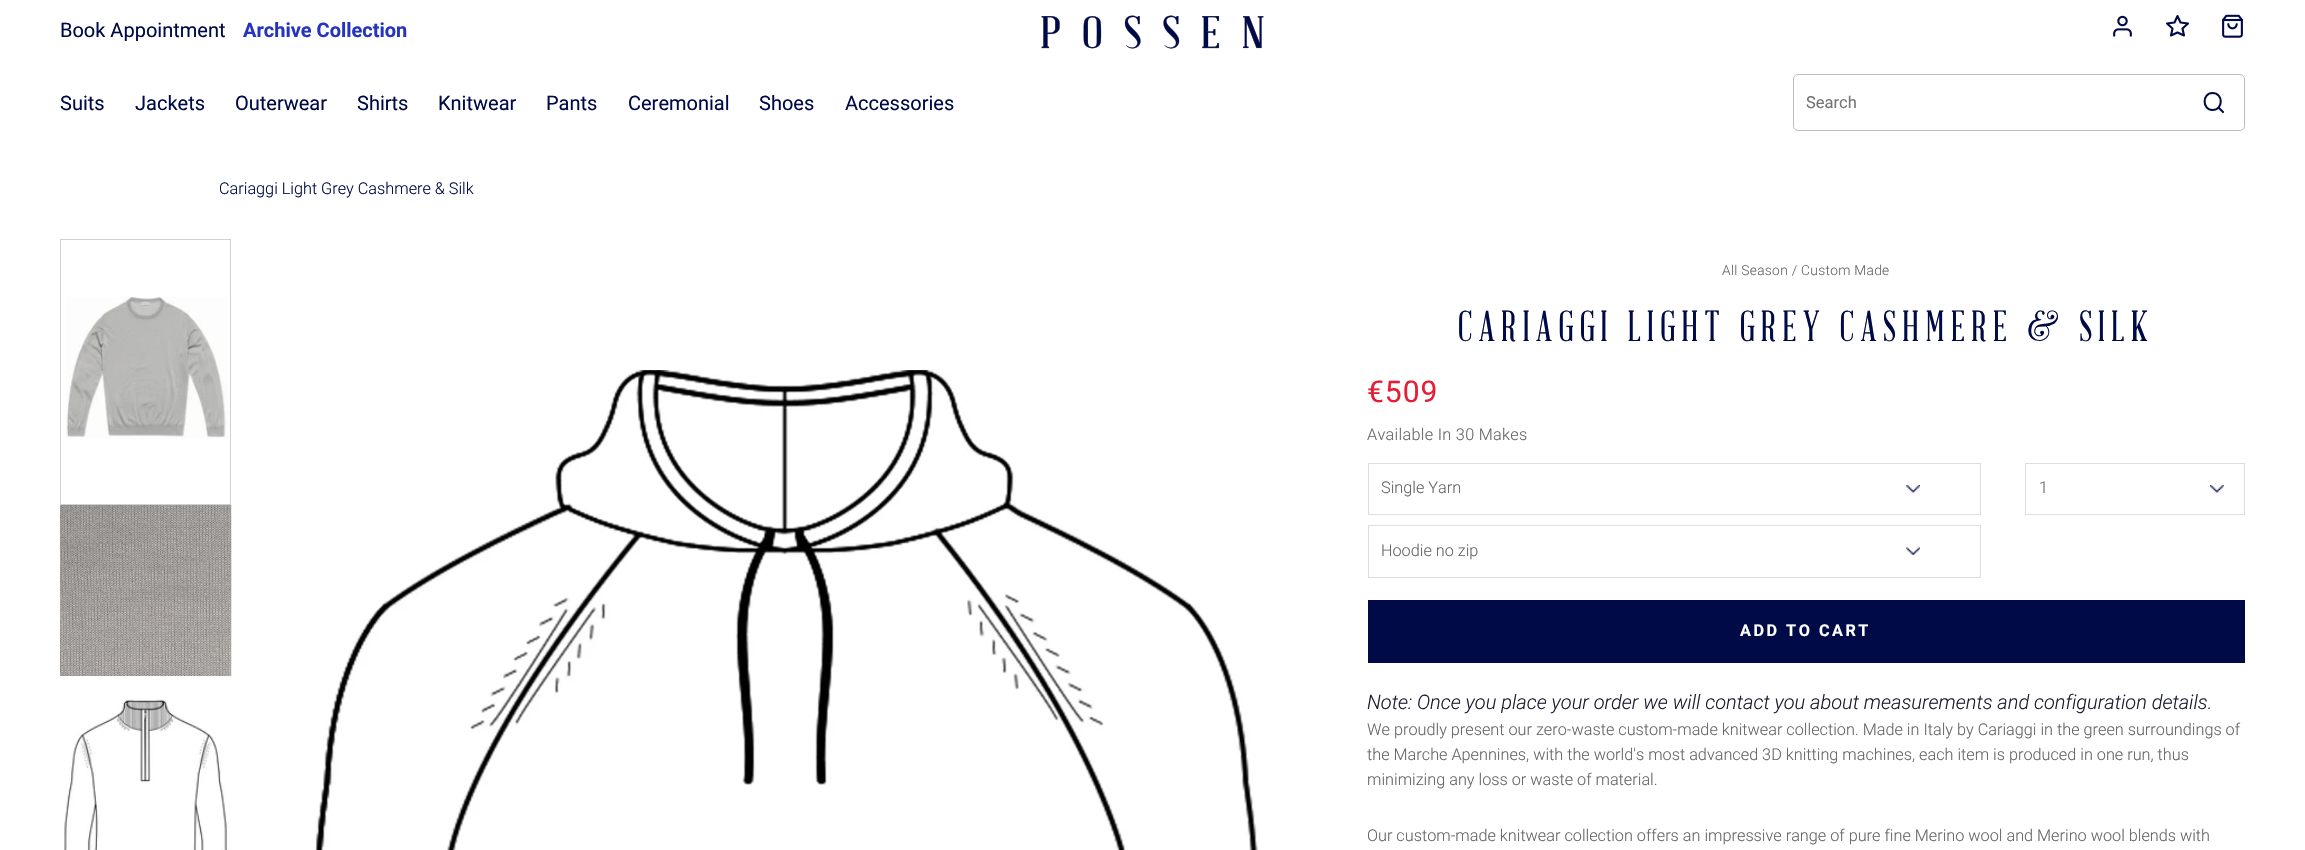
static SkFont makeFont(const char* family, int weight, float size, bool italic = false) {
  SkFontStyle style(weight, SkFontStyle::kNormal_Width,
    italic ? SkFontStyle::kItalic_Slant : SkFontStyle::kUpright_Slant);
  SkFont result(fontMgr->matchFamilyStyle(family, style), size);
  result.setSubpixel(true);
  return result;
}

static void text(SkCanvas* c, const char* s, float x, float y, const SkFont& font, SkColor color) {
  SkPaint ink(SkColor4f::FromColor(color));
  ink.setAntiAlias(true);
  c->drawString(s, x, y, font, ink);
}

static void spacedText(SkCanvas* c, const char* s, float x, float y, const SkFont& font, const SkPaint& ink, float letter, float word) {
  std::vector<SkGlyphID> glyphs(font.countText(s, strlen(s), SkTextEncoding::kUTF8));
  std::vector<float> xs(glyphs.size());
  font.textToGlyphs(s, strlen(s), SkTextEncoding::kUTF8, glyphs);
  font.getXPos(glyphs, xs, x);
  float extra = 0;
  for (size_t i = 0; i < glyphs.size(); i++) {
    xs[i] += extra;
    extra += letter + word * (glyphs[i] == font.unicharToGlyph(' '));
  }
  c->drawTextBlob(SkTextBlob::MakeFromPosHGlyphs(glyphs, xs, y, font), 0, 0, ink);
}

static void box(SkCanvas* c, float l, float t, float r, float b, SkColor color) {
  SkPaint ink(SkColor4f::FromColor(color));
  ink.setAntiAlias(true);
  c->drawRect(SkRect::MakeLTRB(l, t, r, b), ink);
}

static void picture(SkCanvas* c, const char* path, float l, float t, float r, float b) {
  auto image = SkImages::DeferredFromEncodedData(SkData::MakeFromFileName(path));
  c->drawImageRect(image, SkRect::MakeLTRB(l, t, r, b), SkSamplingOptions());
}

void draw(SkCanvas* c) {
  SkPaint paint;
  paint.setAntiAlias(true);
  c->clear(0xffffffff);
  SkFont face1 = makeFont("Roboto", 400, 20);
  text(c, "Book Appointment", 60, 37, face1, 0xff000a46);
  SkFont face2 = makeFont("Roboto", 700, 20);
  text(c, "Archive Collection", 243, 37, face2, 0xff2534c0);
  picture(c, "img_01.png", 1041, 15, 1264, 49);
  picture(c, "img_02.png", 2113, 15, 2132, 37);
  paint.setStyle(SkPaint::kStroke_Style);
  paint.setStrokeWidth(2.1f);
  paint.setStrokeCap(SkPaint::kRound_Cap);
  paint.setStrokeJoin(SkPaint::kRound_Join);
  paint.setColor(0xff000a46);
  c->drawPath(SkPathBuilder().moveTo(2177.5f, 16).lineTo(2180.5f, 22.5f).lineTo(2188, 23.5f).lineTo(2182.5f, 28.5f).lineTo(2184, 35.5f).lineTo(2177.5f, 32.5f).lineTo(2171, 35.5f).lineTo(2172.5f, 28.5f).lineTo(2167, 23.5f).lineTo(2174.5f, 22.5f).close().detach(), paint);
  picture(c, "img_03.png", 2222, 14, 2243, 38);
  text(c, "Suits", 60, 110, face1, 0xff000a46);
  text(c, "Jackets", 135, 110, face1, 0xff000a46);
  text(c, "Outerwear", 235, 110, face1, 0xff000a46);
  text(c, "Shirts", 357, 110, face1, 0xff000a46);
  text(c, "Knitwear", 438, 110, face1, 0xff000a46);
  text(c, "Pants", 546, 110, face1, 0xff000a46);
  text(c, "Ceremonial", 628, 110, face1, 0xff000a46);
  text(c, "Shoes", 759, 110, face1, 0xff000a46);
  text(c, "Accessories", 845, 110, face1, 0xff000a46);
  paint.setStrokeWidth(1);
  paint.setStrokeCap(SkPaint::kButt_Cap);
  paint.setStrokeJoin(SkPaint::kMiter_Join);
  paint.setColor(0xffbdbdbd);
  c->drawRoundRect(SkRect::MakeLTRB(1793.5f, 74.5f, 2244.5f, 130.5f), 4.5f, 4.5f, paint);
  SkFont face3 = makeFont("Roboto", 400, 16.5f);
  text(c, "Search", 1806, 108, face3, 0xff757575);
  paint.setStrokeWidth(2.1f);
  paint.setStrokeCap(SkPaint::kRound_Cap);
  paint.setStrokeJoin(SkPaint::kRound_Join);
  paint.setColor(0xff000a46);
  c->drawPath(SkPathBuilder().moveTo(2212.5f, 110).cubicTo(2223.5f, 110, 2223.5f, 93, 2212.5f, 93).cubicTo(2202, 93, 2202, 110, 2212.5f, 110).close().moveTo(2223, 112).lineTo(2218.5f, 107.5f).detach(), paint);
  SkFont face4 = makeFont("Roboto", 300, 16.25f);
  text(c, "Cariaggi Light Grey Cashmere & Silk", 219, 194, face4, 0xff000a46);
  paint.setStrokeWidth(1);
  paint.setStrokeCap(SkPaint::kButt_Cap);
  paint.setStrokeJoin(SkPaint::kMiter_Join);
  paint.setColor(0xffd0d0d0);
  c->drawRect(SkRect::MakeLTRB(60.5f, 239.5f, 230.5f, 504.5f), paint);
  picture(c, "img_04.png", 66, 297, 229, 439);
  picture(c, "img_05.png", 60, 505, 232, 677);
  picture(c, "img_06.png", 60, 676, 231, 850);
  picture(c, "img_07.png", 315, 369, 1259, 850);
  SkFont face5 = makeFont("Roboto", 300, 13.75f);
  paint.setStyle(SkPaint::kFill_Style);
  paint.setColor(0xff666666);
  spacedText(c, "All Season / Custom Made", 1722, 275, face5, paint, 0.3f, 0);
  SkFont face6 = makeFont("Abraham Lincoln", 400, 42.5f);
  paint.setColor(0xff000a46);
  spacedText(c, "CARIAGGI LIGHT GREY CASHMERE & SILK", 1458, 341, face6, paint, 6.25f, 0);
  SkFont face7 = makeFont("Roboto", 400, 30);
  paint.setColor(0xffe71d34);
  spacedText(c, "€509", 1367, 402, face7, paint, 1, 0);
  paint.setColor(0xff666666);
  spacedText(c, "Available In 30 Makes", 1367, 440, face4, paint, 0.3f, 0);
  paint.setStyle(SkPaint::kStroke_Style);
  paint.setColor(0xffdddddd);
  c->drawRect(SkRect::MakeLTRB(1368.5f, 463.5f, 1980.5f, 514.5f), paint);
  picture(c, "img_08.png", 1906, 485, 1920, 493);
  text(c, "Single Yarn", 1381, 493, face4, 0xff666666);
  c->drawRect(SkRect::MakeLTRB(1368.5f, 525.5f, 1980.5f, 577.5f), paint);
  picture(c, "img_09.png", 1906, 547, 1920, 555);
  text(c, "Hoodie no zip", 1381, 556, face4, 0xff666666);
  c->drawRect(SkRect::MakeLTRB(2025.5f, 463.5f, 2244.5f, 514.5f), paint);
  picture(c, "img_10.png", 2210, 485, 2224, 493);
  text(c, "1", 2039, 493, face4, 0xff666666);
  box(c, 1368, 600, 2245, 663, 0xff000a46);
  SkFont face8 = makeFont("Roboto", 700, 16.25f);
  paint.setStyle(SkPaint::kFill_Style);
  paint.setColor(0xffffffff);
  spacedText(c, "ADD TO CART", 1740, 636, face8, paint, 2.5f, 0);
  SkFont face9 = makeFont("Roboto", 300, 20, true);
  text(c, "Note: Once you place your order we will contact you about measurements and configuration details.", 1367, 709, face9, 0xff1b1c31);
  text(c, "We proudly present our zero-waste custom-made knitwear collection. Made in Italy by Cariaggi in the green surroundings of", 1367, 735, face4, 0xff666666);
  text(c, "the Marche Apennines, with the world's most advanced 3D knitting machines, each item is produced in one run, thus", 1367, 760, face4, 0xff666666);
  text(c, "minimizing any loss or waste of material.", 1367, 785, face4, 0xff666666);
  text(c, "Our custom-made knitwear collection offers an impressive range of pure fine Merino wool and Merino wool blends with", 1367, 841, face4, 0xff666666);
}
